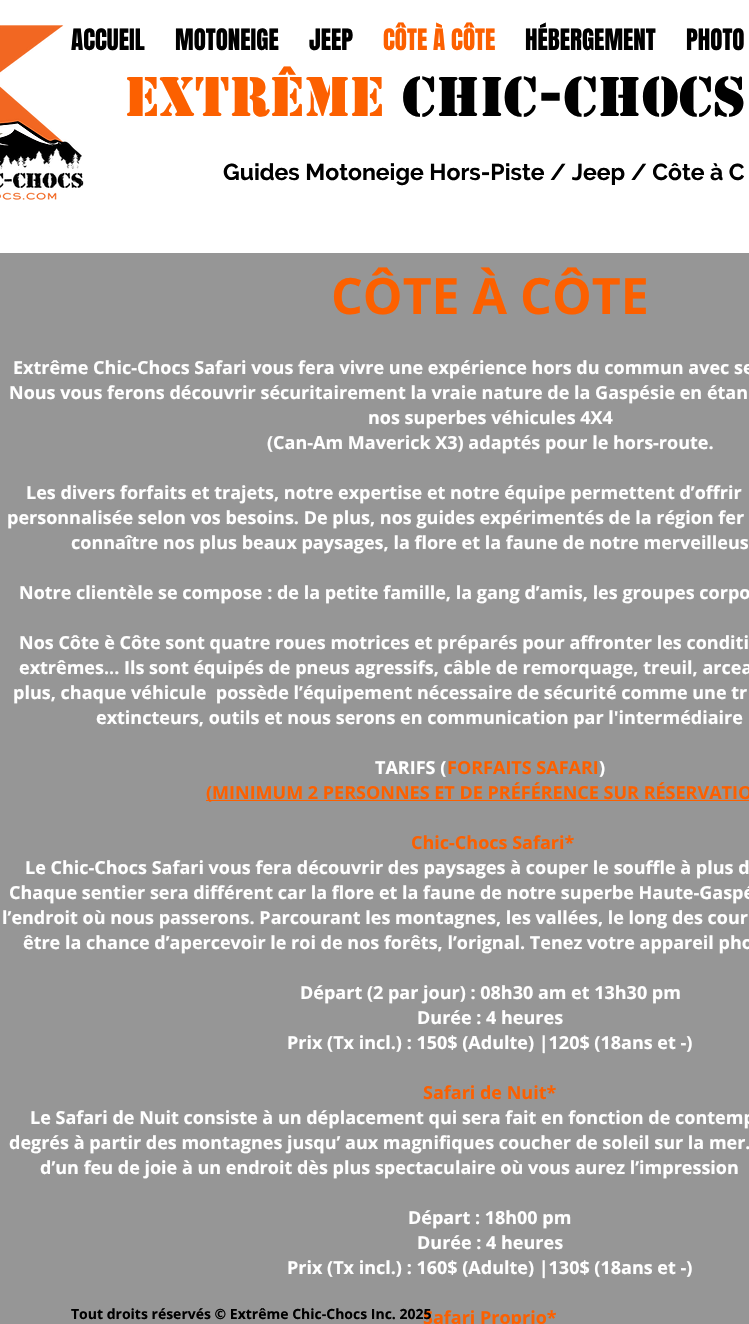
static SkFont makeFont(const char* family, int weight, float size, bool italic = false) {
  SkFontStyle style(weight, SkFontStyle::kNormal_Width,
    italic ? SkFontStyle::kItalic_Slant : SkFontStyle::kUpright_Slant);
  SkFont result(fontMgr->matchFamilyStyle(family, style), size);
  result.setSubpixel(true);
  return result;
}

static void text(SkCanvas* c, const char* s, float x, float y, const SkFont& font, SkColor color) {
  SkPaint ink(SkColor4f::FromColor(color));
  ink.setAntiAlias(true);
  c->drawString(s, x, y, font, ink);
}

static void box(SkCanvas* c, float l, float t, float r, float b, SkColor color) {
  SkPaint ink(SkColor4f::FromColor(color));
  ink.setAntiAlias(true);
  c->drawRect(SkRect::MakeLTRB(l, t, r, b), ink);
}

static void picture(SkCanvas* c, const char* path, float l, float t, float r, float b) {
  auto image = SkImages::DeferredFromEncodedData(SkData::MakeFromFileName(path));
  c->drawImageRect(image, SkRect::MakeLTRB(l, t, r, b), SkSamplingOptions());
}

void draw(SkCanvas* c) {
  SkPaint paint;
  paint.setAntiAlias(true);
  c->clear(0xffffffff);
  picture(c, "img_01.png", 0, 25, 84, 200);
  SkFont face1 = makeFont("Anton", 400, 25);
  text(c, "ACCUEIL", 71, 50, face1, 0xff000000);
  text(c, "MOTONEIGE", 175, 50, face1, 0xff000000);
  text(c, "JEEP", 309, 50, face1, 0xff000000);
  text(c, "CÔTE À CÔTE", 383, 50, face1, 0xfffc6000);
  text(c, "HÉBERGEMENT", 525, 50, face1, 0xff000000);
  text(c, "PHOTO", 686, 50, face1, 0xff000000);
  SkFont face2 = makeFont("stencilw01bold", 700, 52);
  text(c, "EXTRÊME", 125, 116, face2, 0xfffc6000);
  text(c, "CHIC-CHOCS", 402, 116, face2, 0xff000000);
  SkFont face3 = makeFont("Raleway", 700, 23);
  text(c, "Guides Motoneige Hors-Piste / Jeep / Côte à C", 223, 180, face3, 0xff000000);
  box(c, 0, 253, 749, 1324, 0xff969696);
  SkFont face4 = makeFont("Open Sans", 700, 50);
  text(c, "CÔTE À CÔTE", 331, 314, face4, 0xfffc6000);
  SkFont face5 = makeFont("Open Sans", 700, 18);
  text(c, "Extrême Chic-Chocs Safari vous fera vivre une expérience hors du commun avec se", 13, 374, face5, 0xffffffff);
  text(c, "Nous vous ferons découvrir sécuritairement la vraie nature de la Gaspésie en étan", 9, 399, face5, 0xffffffff);
  text(c, "nos superbes véhicules 4X4", 368, 424, face5, 0xffffffff);
  text(c, "(Can-Am Maverick X3) adaptés pour le hors-route.", 267, 449, face5, 0xffffffff);
  text(c, "Les divers forfaits et trajets, notre expertise et notre équipe permettent d’offrir", 26, 499, face5, 0xffffffff);
  text(c, "personnalisée selon vos besoins. De plus, nos guides expérimentés de la région fer", 7, 524, face5, 0xffffffff);
  text(c, "connaître nos plus beaux paysages, la flore et la faune de notre merveilleus", 71, 549, face5, 0xffffffff);
  text(c, "Notre clientèle se compose : de la petite famille, la gang d’amis, les groupes corpo", 19, 599, face5, 0xffffffff);
  text(c, "Nos Côte è Côte sont quatre roues motrices et préparés pour affronter les conditi", 19, 649, face5, 0xffffffff);
  text(c, "extrêmes... Ils sont équipés de pneus agressifs, câble de remorquage, treuil, arcea", 19, 674, face5, 0xffffffff);
  text(c, "plus, chaque véhicule  possède l’équipement nécessaire de sécurité comme une tr", 13, 699, face5, 0xffffffff);
  text(c, "extincteurs, outils et nous serons en communication par l'intermédiaire", 96, 724, face5, 0xffffffff);
  text(c, "TARIFS (", 375, 774, face5, 0xffffffff);
  text(c, "FORFAITS SAFARI", 447, 774, face5, 0xfffc6000);
  text(c, ")", 599, 774, face5, 0xffffffff);
  box(c, 206, 800, 749, 801, 0xfffc6000);
  text(c, "(MINIMUM 2 PERSONNES ET DE PRÉFÉRENCE SUR RÉSERVATIO", 206, 799, face5, 0xfffc6000);
  text(c, "Chic-Chocs Safari*", 411, 849, face5, 0xfffc6000);
  text(c, "Le Chic-Chocs Safari vous fera découvrir des paysages à couper le souffle à plus d", 25, 874, face5, 0xffffffff);
  text(c, "Chaque sentier sera différent car la flore et la faune de notre superbe Haute-Gaspé", 9, 899, face5, 0xffffffff);
  text(c, "l’endroit où nous passerons. Parcourant les montagnes, les vallées, le long des cour", 2, 924, face5, 0xffffffff);
  text(c, "être la chance d’apercevoir le roi de nos forêts, l’orignal. Tenez votre appareil pho", 23, 949, face5, 0xffffffff);
  text(c, "Départ (2 par jour) : 08h30 am et 13h30 pm", 300, 999, face5, 0xffffffff);
  text(c, "Durée : 4 heures", 417, 1024, face5, 0xffffffff);
  text(c, "Prix (Tx incl.) : 150$ (Adulte) |120$ (18ans et -)", 287, 1049, face5, 0xffffffff);
  text(c, "Safari de Nuit*", 423, 1099, face5, 0xfffc6000);
  text(c, "Le Safari de Nuit consiste à un déplacement qui sera fait en fonction de contemp", 30, 1124, face5, 0xffffffff);
  text(c, "degrés à partir des montagnes jusqu’ aux magnifiques coucher de soleil sur la mer.", 9, 1149, face5, 0xffffffff);
  text(c, "d’un feu de joie à un endroit dès plus spectaculaire où vous aurez l’impression", 40, 1174, face5, 0xffffffff);
  text(c, "Départ : 18h00 pm", 408, 1224, face5, 0xffffffff);
  text(c, "Durée : 4 heures", 417, 1249, face5, 0xffffffff);
  text(c, "Prix (Tx incl.) : 160$ (Adulte) |130$ (18ans et -)", 287, 1274, face5, 0xffffffff);
  text(c, "Safari Proprio*", 423, 1324, face5, 0xfffc6000);
  SkFont face6 = makeFont("Open Sans", 700, 14);
  text(c, "Tout droits réservés © Extrême Chic-Chocs Inc. 2025", 71, 1319, face6, 0xff000000);
}
